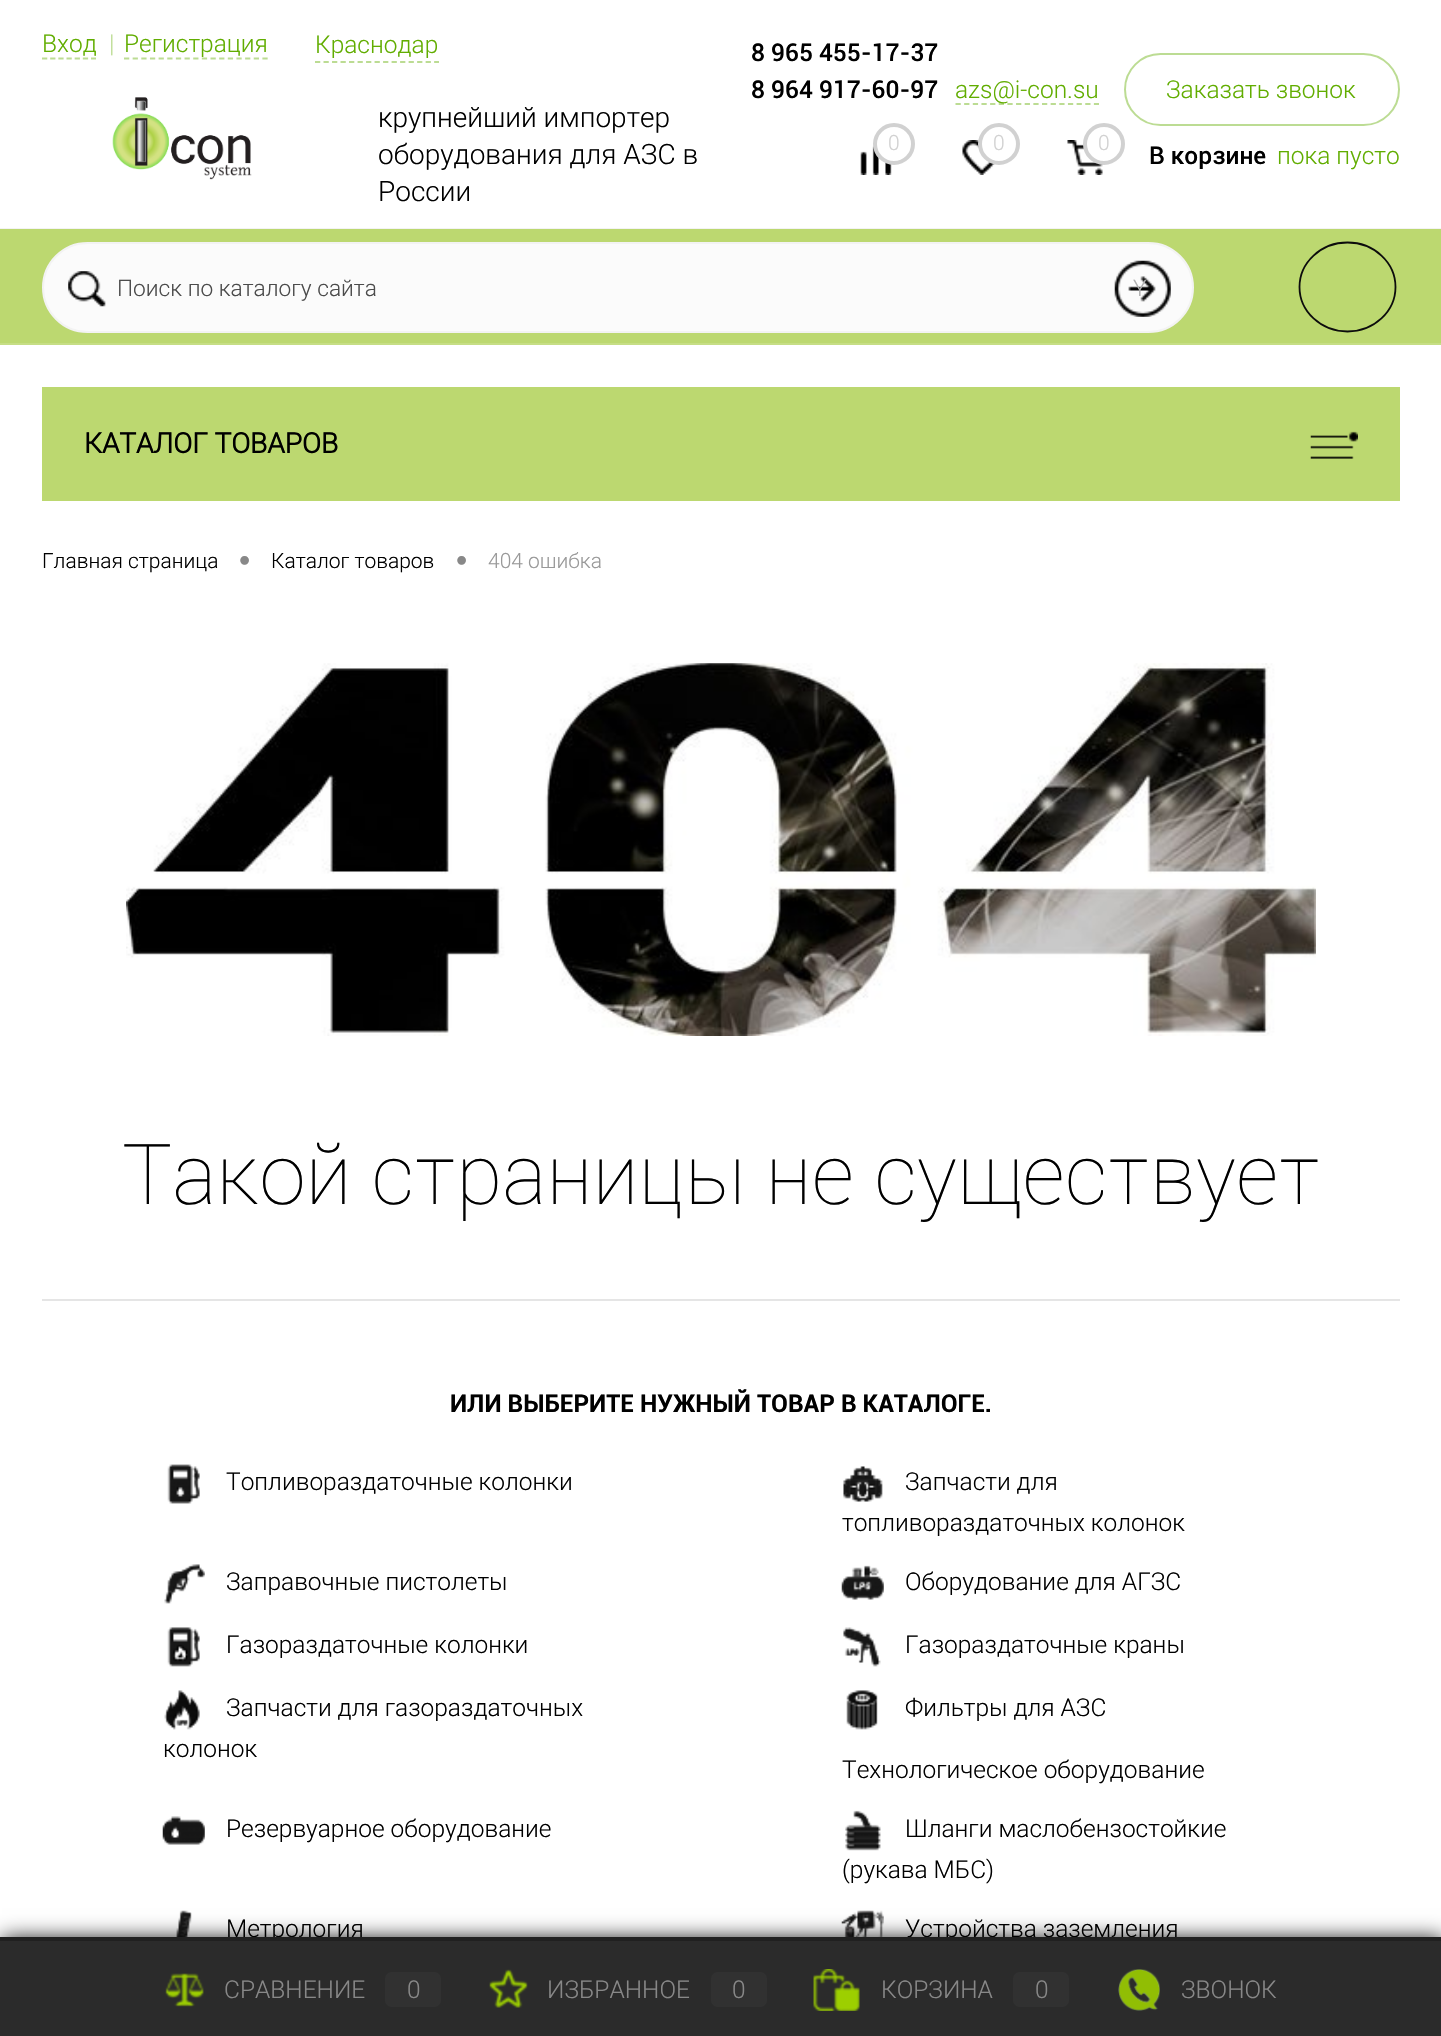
static SkFont makeFont(const char* family, int weight, float size, bool italic = false) {
  SkFontStyle style(weight, SkFontStyle::kNormal_Width,
    italic ? SkFontStyle::kItalic_Slant : SkFontStyle::kUpright_Slant);
  SkFont result(fontMgr->matchFamilyStyle(family, style), size);
  result.setSubpixel(true);
  return result;
}

static void text(SkCanvas* c, const char* s, float x, float y, const SkFont& font, SkColor color) {
  SkPaint ink(SkColor4f::FromColor(color));
  ink.setAntiAlias(true);
  c->drawString(s, x, y, font, ink);
}

static void box(SkCanvas* c, float l, float t, float r, float b, SkColor color) {
  SkPaint ink(SkColor4f::FromColor(color));
  ink.setAntiAlias(true);
  c->drawRect(SkRect::MakeLTRB(l, t, r, b), ink);
}

static void roundBox(SkCanvas* c, float l, float t, float r, float b, float radius, SkColor color) {
  SkPaint ink(SkColor4f::FromColor(color));
  ink.setAntiAlias(true);
  c->drawRoundRect(SkRect::MakeLTRB(l, t, r, b), radius, radius, ink);
}

static void picture(SkCanvas* c, const char* path, float l, float t, float r, float b) {
  auto image = SkImages::DeferredFromEncodedData(SkData::MakeFromFileName(path));
  c->drawImageRect(image, SkRect::MakeLTRB(l, t, r, b), SkSamplingOptions());
}

void draw(SkCanvas* c) {
  SkPaint paint;
  paint.setAntiAlias(true);
  c->clear(0xffffffff);
  box(c, 0, 228, 1441, 229, 0xfff3f3f3);
  SkFont face1 = makeFont("Roboto", 300, 24.5f);
  text(c, "Вход", 42, 52, face1, 0xff61ad00);
  paint.setStyle(SkPaint::kStroke_Style);
  paint.setStrokeWidth(1.8f);
  paint.setColor(0xffbcdc93);
  paint.setPathEffect(SkDashPathEffect::Make({{5.25f, 2.92f}}, 0));
  c->drawPath(SkPathBuilder().moveTo(42, 58.5f).lineTo(96, 58.5f).detach(), paint);
  paint.setPathEffect(nullptr);
  text(c, "|", 109, 52, face1, 0xffbcdc93);
  text(c, "Регистрация", 124, 52, face1, 0xff61ad00);
  paint.setPathEffect(SkDashPathEffect::Make({{5.25f, 3.4f}}, 0));
  c->drawPath(SkPathBuilder().moveTo(124, 58.5f).lineTo(268, 58.5f).detach(), paint);
  paint.setPathEffect(nullptr);
  text(c, "Краснодар", 315, 53, face1, 0xff61ad00);
  paint.setPathEffect(SkDashPathEffect::Make({{5.25f, 3.26f}}, 0));
  c->drawPath(SkPathBuilder().moveTo(315, 62).lineTo(439, 62).detach(), paint);
  paint.setPathEffect(nullptr);
  box(c, 0, 229, 1441, 343, 0xffbcd870);
  paint.setStyle(SkPaint::kFill_Style);
  paint.setColor(0xfffbfbfb);
  c->drawRoundRect(SkRect::MakeLTRB(43, 243, 1193, 332), 44.5f, 44.5f, paint);
  paint.setStyle(SkPaint::kStroke_Style);
  paint.setStrokeWidth(2);
  paint.setColor(0xfff3f3f3);
  c->drawRoundRect(SkRect::MakeLTRB(43, 243, 1193, 332), 44.5f, 44.5f, paint);
  picture(c, "img_01.png", 68, 271, 106, 307);
  SkFont face2 = makeFont("Roboto", 300, 22.75f);
  text(c, "Поиск по каталогу сайта", 117, 296, face2, 0xff4b4b4b);
  picture(c, "img_02.png", 1114, 260, 1171, 317);
  text(c, "Y", 1133, 296, face2, 0xffb0b0b0);
  picture(c, "img_03.png", 112, 97, 252, 180);
  SkFont face3 = makeFont("Roboto", 300, 28);
  text(c, "крупнейший импортер", 378, 127, face3, 0xff000000);
  text(c, "оборудования для АЗС в", 378, 164, face3, 0xff000000);
  text(c, "России", 378, 201, face3, 0xff000000);
  SkFont face4 = makeFont("Roboto", 500, 24.5f);
  text(c, "8 965 455-17-37", 751, 61, face4, 0xff000000);
  text(c, "8 964 917-60-97", 751, 98, face4, 0xff000000);
  paint.setStrokeWidth(1.8f);
  paint.setColor(0xffbcdc93);
  paint.setPathEffect(SkDashPathEffect::Make({{5.25f, 3.4f}}, 0));
  c->drawPath(SkPathBuilder().moveTo(955.5f, 104).lineTo(1099, 104).detach(), paint);
  paint.setPathEffect(nullptr);
  text(c, "azs@i-con.su", 955, 98, face1, 0xff61ad00);
  paint.setStrokeWidth(2);
  c->drawRoundRect(SkRect::MakeLTRB(1125, 54, 1399, 125), 35.5f, 35.5f, paint);
  text(c, "Заказать звонок", 1166, 98, face1, 0xff61ad00);
  picture(c, "img_04.png", 860, 145, 892, 175);
  paint.setStyle(SkPaint::kFill_Style);
  paint.setColor(0xffffffff);
  c->drawCircle(894, 144, 19, paint);
  paint.setStyle(SkPaint::kStroke_Style);
  paint.setStrokeWidth(4);
  paint.setColor(0xffd1d1d1);
  c->drawCircle(894, 144, 19, paint);
  SkFont face5 = makeFont("Roboto", 300, 21);
  text(c, "0", 888, 150, face5, 0xffd1d1d1);
  picture(c, "img_05.png", 962, 140, 995, 175);
  paint.setStyle(SkPaint::kFill_Style);
  paint.setColor(0xffffffff);
  c->drawCircle(999, 144, 19, paint);
  paint.setStyle(SkPaint::kStroke_Style);
  paint.setColor(0xffd1d1d1);
  c->drawCircle(999, 144, 19, paint);
  text(c, "0", 993, 150, face5, 0xffd1d1d1);
  picture(c, "img_06.png", 1067, 140, 1103, 175);
  paint.setStyle(SkPaint::kFill_Style);
  paint.setColor(0xffffffff);
  c->drawCircle(1104, 144, 19, paint);
  paint.setStyle(SkPaint::kStroke_Style);
  paint.setColor(0xffd1d1d1);
  c->drawCircle(1104, 144, 19, paint);
  text(c, "0", 1098, 150, face5, 0xffd1d1d1);
  text(c, "В корзине", 1149, 164, face4, 0xff000000);
  text(c, "пока пусто", 1277, 164, face1, 0xff61ad00);
  box(c, 0, 343, 1441, 345, 0xffc6de85);
  paint.setStrokeWidth(1.8f);
  paint.setColor(0xff0c0c0c);
  c->drawPath(SkPathBuilder().moveTo(1347.5f, 242.5f).cubicTo(1374, 242.5f, 1395.5f, 262.5f, 1395.5f, 287).cubicTo(1395.5f, 311.5f, 1374, 331.5f, 1347.5f, 331.5f).cubicTo(1321, 331.5f, 1299.5f, 311.5f, 1299.5f, 287).cubicTo(1299.5f, 262.5f, 1321, 242.5f, 1347.5f, 242.5f).close().detach(), paint);
  box(c, 42, 387, 1400, 501, 0xffbcd870);
  SkFont face6 = makeFont("Roboto", 700, 28);
  text(c, "КАТАЛОГ ТОВАРОВ", 84, 453, face6, 0xff000000);
  picture(c, "img_07.png", 1310, 431, 1358, 459);
  text(c, "Главная страница", 42, 568, face5, 0xff000000);
  SkFont face7 = makeFont("Liberation Sans", 400, 32);
  text(c, "•", 239, 571, face7, 0xff888888);
  text(c, "Каталог товаров", 271, 568, face5, 0xff000000);
  text(c, "•", 456, 571, face7, 0xff888888);
  text(c, "404 ошибка", 488, 568, face5, 0xff999999);
  picture(c, "img_08.png", 126, 663, 1316, 1036);
  SkFont face8 = makeFont("Roboto", 100, 84);
  text(c, "Такой страницы не существует", 122, 1204, face8, 0xff000000);
  box(c, 42, 1299, 1400, 1301, 0xffe5e5e5);
  SkFont face9 = makeFont("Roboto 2", 700, 24.5f);
  text(c, "ИЛИ ВЫБЕРИТЕ НУЖНЫЙ ТОВАР В КАТАЛОГЕ.", 450, 1412, face9, 0xff000000);
  picture(c, "img_09.png", 167, 1464, 200, 1504);
  text(c, "Топливораздаточные колонки", 226, 1490, face1, 0xff000000);
  picture(c, "img_10.png", 843, 1466, 883, 1502);
  text(c, "Запчасти для", 905, 1490, face1, 0xff000000);
  text(c, "топливораздаточных колонок", 842, 1531, face1, 0xff000000);
  picture(c, "img_11.png", 164, 1564, 205, 1604);
  text(c, "Заправочные пистолеты", 226, 1590, face1, 0xff000000);
  picture(c, "img_12.png", 841, 1565, 884, 1600);
  text(c, "Оборудование для АГЗС", 905, 1590, face1, 0xff000000);
  picture(c, "img_13.png", 167, 1627, 200, 1667);
  text(c, "Газораздаточные колонки", 226, 1653, face1, 0xff000000);
  picture(c, "img_14.png", 843, 1627, 881, 1667);
  text(c, "Газораздаточные краны", 905, 1653, face1, 0xff000000);
  picture(c, "img_15.png", 164, 1690, 200, 1730);
  text(c, "Запчасти для газораздаточных", 226, 1716, face1, 0xff000000);
  text(c, "колонок", 163, 1757, face1, 0xff000000);
  picture(c, "img_16.png", 846, 1690, 878, 1730);
  text(c, "Фильтры для АЗС", 905, 1716, face1, 0xff000000);
  text(c, "Технологическое оборудование", 842, 1778, face1, 0xff000000);
  picture(c, "img_17.png", 162, 1816, 205, 1845);
  text(c, "Резервуарное оборудование", 226, 1837, face1, 0xff000000);
  picture(c, "img_18.png", 845, 1810, 881, 1851);
  text(c, "Шланги маслобензостойкие", 905, 1837, face1, 0xff000000);
  text(c, "(рукава МБС)", 842, 1878, face1, 0xff000000);
  picture(c, "img_19.png", 176, 1910, 192, 1937);
  text(c, "Метрология", 226, 1937, face1, 0xff000000);
  picture(c, "img_20.png", 841, 1910, 884, 1937);
  text(c, "Устройства заземления", 905, 1937, face1, 0xff000000);
  paint.setStyle(SkPaint::kFill_Style);
  paint.setColor(0xff000000);
  paint.setMaskFilter(SkMaskFilter::MakeBlur(kNormal_SkBlurStyle, 10.5f));
  c->drawRect(SkRect::MakeLTRB(2, 1939, 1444, 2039), paint);
  paint.setMaskFilter(nullptr);
  box(c, 0, 1941, 1441, 2036, 0xff2b2b2b);
  box(c, 0, 1937, 1441, 1941, 0xff202020);
  picture(c, "img_21.png", 165, 1973, 204, 2007);
  text(c, "СРАВНЕНИЕ", 224, 1998, face1, 0xff888888);
  roundBox(c, 385, 1972, 441, 2007, 7, 0xff313131);
  text(c, "0", 407, 1998, face1, 0xff888888);
  picture(c, "img_22.png", 489, 1969, 528, 2008);
  text(c, "ИЗБРАННОЕ", 547, 1998, face1, 0xff888888);
  roundBox(c, 711, 1972, 767, 2007, 7, 0xff313131);
  text(c, "0", 732, 1998, face1, 0xff888888);
  picture(c, "img_23.png", 813, 1969, 860, 2011);
  text(c, "КОРЗИНА", 881, 1998, face1, 0xff888888);
  roundBox(c, 1013, 1972, 1069, 2007, 7, 0xff313131);
  text(c, "0", 1035, 1998, face1, 0xff888888);
  picture(c, "img_24.png", 1118, 1969, 1160, 2011);
  text(c, "ЗВОНОК", 1181, 1998, face1, 0xff888888);
}
